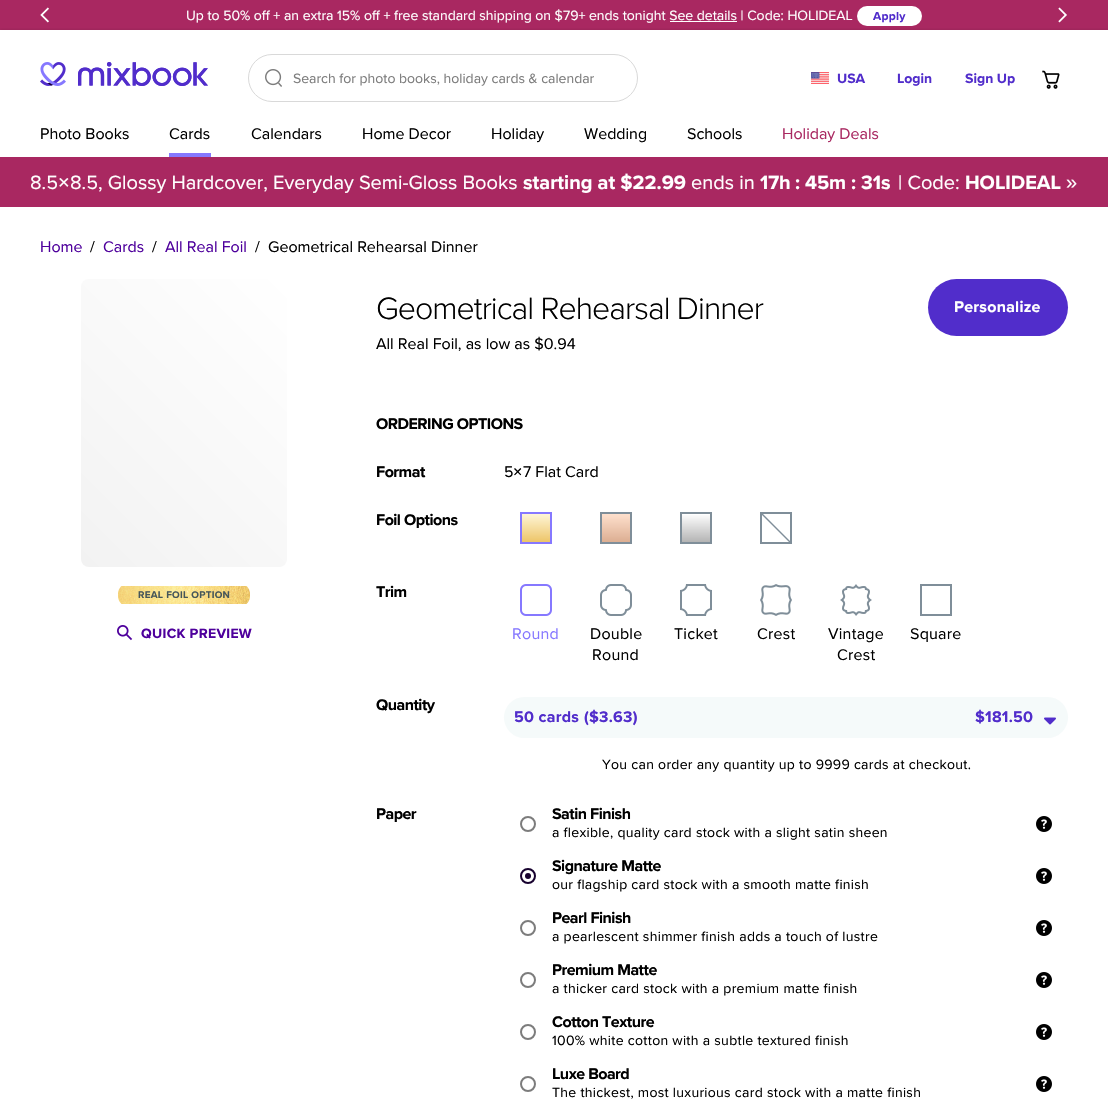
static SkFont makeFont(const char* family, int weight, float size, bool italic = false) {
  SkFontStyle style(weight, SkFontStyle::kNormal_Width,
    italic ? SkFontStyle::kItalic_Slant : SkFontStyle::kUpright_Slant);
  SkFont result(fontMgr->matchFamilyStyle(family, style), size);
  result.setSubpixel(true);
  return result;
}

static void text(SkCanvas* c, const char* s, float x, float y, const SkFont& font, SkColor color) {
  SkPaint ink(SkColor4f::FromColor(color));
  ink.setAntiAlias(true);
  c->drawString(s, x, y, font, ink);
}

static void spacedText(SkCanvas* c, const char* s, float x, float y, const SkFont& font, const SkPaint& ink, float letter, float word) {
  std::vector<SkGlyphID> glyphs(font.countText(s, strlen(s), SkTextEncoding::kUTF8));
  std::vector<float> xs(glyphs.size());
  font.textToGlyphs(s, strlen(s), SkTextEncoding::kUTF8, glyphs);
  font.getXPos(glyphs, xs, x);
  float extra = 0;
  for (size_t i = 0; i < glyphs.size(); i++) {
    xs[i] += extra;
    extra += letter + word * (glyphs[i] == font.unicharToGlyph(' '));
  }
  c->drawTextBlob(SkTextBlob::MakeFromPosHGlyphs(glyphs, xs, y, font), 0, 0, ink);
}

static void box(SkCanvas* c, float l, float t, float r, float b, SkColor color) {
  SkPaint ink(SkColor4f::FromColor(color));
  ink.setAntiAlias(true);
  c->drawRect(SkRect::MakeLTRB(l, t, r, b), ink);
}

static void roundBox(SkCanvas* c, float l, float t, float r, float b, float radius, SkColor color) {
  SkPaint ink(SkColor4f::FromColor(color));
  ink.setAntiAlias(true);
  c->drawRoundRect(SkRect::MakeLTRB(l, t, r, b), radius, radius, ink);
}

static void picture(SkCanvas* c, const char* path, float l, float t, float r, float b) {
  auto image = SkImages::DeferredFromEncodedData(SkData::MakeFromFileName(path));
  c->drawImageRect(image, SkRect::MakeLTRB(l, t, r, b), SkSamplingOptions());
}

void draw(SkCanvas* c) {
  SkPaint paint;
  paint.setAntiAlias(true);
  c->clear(0xffffffff);
  box(c, 0, 0, 1108, 30, 0xffa92861);
  picture(c, "img_01.png", 40, 7, 49, 23);
  SkFont face1 = makeFont("Proxima Nova", 400, 14);
  text(c, "Up to 50% off + an extra 15% off + free standard shipping on $79+ ends tonight See details | Code: HOLIDEAL", 186, 20, face1, 0xffffffff);
  box(c, 670, 21, 737, 22, 0xffffffff);
  c->save();
  c->clipRect(SkRect::MakeLTRB(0, 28, 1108, 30));
  paint.setColor(0x1f000000);
  paint.setMaskFilter(SkMaskFilter::MakeBlur(kNormal_SkBlurStyle, 2));
  c->drawRect(SkRect::MakeLTRB(0, 30, 1108, 157), paint);
  paint.setMaskFilter(nullptr);
  c->restore();
  roundBox(c, 857, 6, 922, 26, 10, 0xffffffff);
  SkFont face2 = makeFont("Proxima Nova", 700, 12);
  paint.setColor(0xff512dcb);
  spacedText(c, "Apply", 873, 20, face2, paint, 0.25f, 0);
  picture(c, "img_02.png", 1058, 7, 1067, 23);
  picture(c, "img_03.png", 40, 62, 208, 86);
  paint.setStyle(SkPaint::kStroke_Style);
  paint.setStrokeWidth(1);
  paint.setColor(0xffd9d9d9);
  c->drawRoundRect(SkRect::MakeLTRB(248.5f, 54.5f, 637.5f, 101.5f), 23.5f, 23.5f, paint);
  picture(c, "img_04.png", 265, 69, 282, 87);
  text(c, "Search for photo books, holiday cards & calendar", 293, 83, face1, 0xff7c7c7c);
  picture(c, "img_05.png", 811, 72, 829, 84);
  SkFont face3 = makeFont("Proxima Nova", 700, 14);
  text(c, "USA", 837, 83, face3, 0xff512dcb);
  text(c, "Login", 897, 83, face3, 0xff512dcb);
  text(c, "Sign Up", 965, 83, face3, 0xff512dcb);
  picture(c, "img_06.png", 1042, 70, 1060, 89);
  SkFont face4 = makeFont("Proxima Nova", 400, 16);
  text(c, "Photo Books", 40, 139, face4, 0xff000000);
  text(c, "Cards", 169, 139, face4, 0xff000000);
  box(c, 169, 153, 211, 157, 0xff8678ff);
  text(c, "Calendars", 251, 139, face4, 0xff000000);
  text(c, "Home Decor", 362, 139, face4, 0xff000000);
  text(c, "Holiday", 491, 139, face4, 0xff000000);
  text(c, "Wedding", 584, 139, face4, 0xff000000);
  text(c, "Schools", 687, 139, face4, 0xff000000);
  text(c, "Holiday Deals", 782, 139, face4, 0xffa92861);
  box(c, 0, 157, 1108, 207, 0xffa92861);
  SkFont face5 = makeFont("Proxima Nova", 400, 20);
  text(c, "8.5", 30, 189, face5, 0xffffffff);
  SkFont face6 = makeFont("Liberation Sans", 400, 20);
  text(c, "×", 58, 189, face6, 0xffffffff);
  text(c, "8.5, Glossy Hardcover, Everyday Semi-Gloss Books", 70, 189, face5, 0xffffffff);
  SkFont face7 = makeFont("Proxima Nova", 700, 20);
  text(c, "starting at $22.99", 523, 189, face7, 0xffffffff);
  text(c, "ends in", 691, 189, face5, 0xffffffff);
  text(c, "17h", 760, 189, face7, 0xffffffff);
  text(c, ":", 795, 189, face7, 0xffffffff);
  text(c, "45m", 805, 189, face7, 0xffffffff);
  text(c, ":", 851, 189, face7, 0xffffffff);
  text(c, "31s", 861, 189, face7, 0xffffffff);
  text(c, "| Code:", 898, 189, face5, 0xffffffff);
  text(c, "HOLIDEAL", 965, 189, face7, 0xffffffff);
  text(c, "»", 1066, 189, face6, 0xffffffff);
  text(c, "Home", 40, 252, face4, 0xff4e009c);
  text(c, "/", 90, 252, face4, 0xff000000);
  text(c, "Cards", 103, 252, face4, 0xff4e009c);
  text(c, "/", 152, 252, face4, 0xff000000);
  text(c, "All Real Foil", 165, 252, face4, 0xff4e009c);
  text(c, "/", 255, 252, face4, 0xff000000);
  text(c, "Geometrical Rehearsal Dinner", 268, 252, face4, 0xff000000);
  paint.setStyle(SkPaint::kFill_Style);
  {
    const SkColor colors[] = {0xfff2f2f2, 0xffffffff};
    const float stops[] = {0, 1};
    const SkPoint ends[] = {{61, 547}, {308, 300}};
    paint.setShader(SkGradientShader::MakeLinear(ends, colors, stops, 2, SkTileMode::kClamp));
    paint.setAlpha(255);
  }
  c->drawRoundRect(SkRect::MakeLTRB(81, 279, 287, 567), 8, 8, paint);
  picture(c, "img_07.png", 118, 586, 250, 604);
  SkFont face8 = makeFont("Proxima Nova", 700, 10);
  paint.setShader(nullptr);
  paint.setColor(0xff465659);
  spacedText(c, "REAL FOIL OPTION", 138, 598, face8, paint, 0.25f, 0);
  picture(c, "img_08.png", 117, 625, 133, 641);
  paint.setColor(0xff4e009c);
  spacedText(c, "QUICK PREVIEW", 141, 638, face3, paint, 0.3f, 0);
  SkFont face9 = makeFont("Proxima Nova", 300, 32);
  paint.setColor(0xff000000);
  spacedText(c, "Geometrical Rehearsal Dinner", 376, 319, face9, paint, -0.95f, 0);
  roundBox(c, 928, 279, 1068, 336, 28.5f, 0xff512dcb);
  SkFont face10 = makeFont("Proxima Nova", 700, 16);
  paint.setColor(0xffffffff);
  spacedText(c, "Personalize", 954, 312, face10, paint, 0.25f, 0);
  text(c, "All Real Foil, as low as $0.94", 376, 349, face4, 0xff000000);
  paint.setColor(0xff000000);
  spacedText(c, "ORDERING OPTIONS", 376, 429, face10, paint, -0.5f, 0);
  spacedText(c, "Format", 376, 477, face10, paint, -0.5f, 0);
  text(c, "5", 504, 477, face4, 0xff000000);
  SkFont face11 = makeFont("Liberation Sans", 400, 16);
  text(c, "×", 513, 477, face11, 0xff000000);
  text(c, "7 Flat Card", 523, 477, face4, 0xff000000);
  spacedText(c, "Foil Options", 376, 525, face10, paint, -0.5f, 0);
  paint.setColor(0xff8678ff);
  c->drawPath(SkPathBuilder().moveTo(520, 512).lineTo(552, 512).lineTo(552, 544).lineTo(520, 544).close().moveTo(522, 514).lineTo(522, 542).lineTo(550, 542).lineTo(550, 514).close().detach(), paint);
  {
    const SkColor colors[] = {0xfffef5d7, 0xffedc568};
    const float stops[] = {0, 1};
    const SkPoint ends[] = {{536, 514}, {536, 542}};
    paint.setShader(SkGradientShader::MakeLinear(ends, colors, stops, 2, SkTileMode::kClamp));
    paint.setAlpha(255);
  }
  c->drawRect(SkRect::MakeLTRB(522, 514, 550, 542), paint);
  paint.setShader(nullptr);
  paint.setColor(0xff7f8e99);
  c->drawPath(SkPathBuilder().moveTo(600, 512).lineTo(632, 512).lineTo(632, 544).lineTo(600, 544).close().moveTo(602, 514).lineTo(602, 542).lineTo(630, 542).lineTo(630, 514).close().detach(), paint);
  {
    const SkColor colors[] = {0xfffee0cd, 0xffdcae92};
    const float stops[] = {0, 1};
    const SkPoint ends[] = {{616, 514}, {616, 542}};
    paint.setShader(SkGradientShader::MakeLinear(ends, colors, stops, 2, SkTileMode::kClamp));
    paint.setAlpha(255);
  }
  c->drawRect(SkRect::MakeLTRB(602, 514, 630, 542), paint);
  paint.setShader(nullptr);
  paint.setColor(0xff7f8e99);
  c->drawPath(SkPathBuilder().moveTo(680, 512).lineTo(712, 512).lineTo(712, 544).lineTo(680, 544).close().moveTo(682, 514).lineTo(682, 542).lineTo(710, 542).lineTo(710, 514).close().detach(), paint);
  {
    const SkColor colors[] = {0xfffefefe, 0xffb4b4b4};
    const float stops[] = {0, 1};
    const SkPoint ends[] = {{696, 514}, {696, 542}};
    paint.setShader(SkGradientShader::MakeLinear(ends, colors, stops, 2, SkTileMode::kClamp));
    paint.setAlpha(255);
  }
  c->drawRect(SkRect::MakeLTRB(682, 515, 710, 542), paint);
  paint.setShader(nullptr);
  paint.setColor(0xff7f8e99);
  c->drawPath(SkPathBuilder().moveTo(763, 514).lineTo(790, 541).lineTo(790, 514).close().moveTo(789, 542).lineTo(762, 515).lineTo(762, 542).close().moveTo(760, 512).lineTo(792, 512).lineTo(792, 544).lineTo(760, 544).close().detach(), paint);
  paint.setColor(0xff000000);
  spacedText(c, "Trim", 376, 597, face10, paint, -0.5f, 0);
  picture(c, "img_09.png", 520, 584, 552, 616);
  paint.setColor(0xff8678ff);
  spacedText(c, "Round", 512, 639, face4, paint, 0.25f, 0);
  picture(c, "img_10.png", 600, 584, 632, 616);
  paint.setColor(0xff000000);
  spacedText(c, "Double", 590, 639, face4, paint, 0.25f, 0);
  spacedText(c, "Round", 592, 660, face4, paint, 0.25f, 0);
  picture(c, "img_11.png", 680, 584, 712, 616);
  spacedText(c, "Ticket", 674, 639, face4, paint, 0.25f, 0);
  picture(c, "img_12.png", 760, 584, 792, 616);
  spacedText(c, "Crest", 757, 639, face4, paint, 0.25f, 0);
  picture(c, "img_13.png", 840, 584, 872, 616);
  spacedText(c, "Vintage", 828, 639, face4, paint, 0.25f, 0);
  spacedText(c, "Crest", 837, 660, face4, paint, 0.25f, 0);
  paint.setColor(0xff7f8e99);
  c->drawPath(SkPathBuilder().moveTo(922, 586).lineTo(922, 614).lineTo(950, 614).lineTo(950, 586).close().moveTo(920, 584).lineTo(952, 584).lineTo(952, 616).lineTo(920, 616).close().detach(), paint);
  paint.setColor(0xff000000);
  spacedText(c, "Square", 910, 639, face4, paint, 0.25f, 0);
  spacedText(c, "Quantity", 376, 710, face10, paint, -0.5f, 0);
  roundBox(c, 504, 697, 1068, 738, 20.5f, 0xfff5fafa);
  paint.setColor(0xff512dcb);
  spacedText(c, "50 cards", 514, 722, face10, paint, 0.25f, 0);
  spacedText(c, "($3.63)", 584, 722, face10, paint, 0.25f, 0);
  spacedText(c, "$181.50", 975, 722, face10, paint, 0.25f, 0);
  picture(c, "img_14.png", 1044, 717, 1056, 725);
  paint.setColor(0xff000000);
  spacedText(c, "You can order any quantity up to 9999 cards at checkout.", 602, 769, face1, paint, 0.3f, 0);
  spacedText(c, "Paper", 376, 819, face10, paint, -0.5f, 0);
  paint.setStyle(SkPaint::kStroke_Style);
  paint.setStrokeWidth(2);
  paint.setColor(0xff7c7c7c);
  c->drawCircle(528, 824, 7, paint);
  paint.setStyle(SkPaint::kFill_Style);
  paint.setColor(0xff000000);
  spacedText(c, "Satin Finish", 552, 819, face10, paint, -0.5f, 0);
  spacedText(c, "a flexible, quality card stock with a slight satin sheen", 552, 837, face1, paint, 0.3f, 0);
  picture(c, "img_15.png", 1036, 816, 1052, 832);
  paint.setStyle(SkPaint::kStroke_Style);
  paint.setColor(0xff17012e);
  c->drawCircle(528, 876, 7, paint);
  paint.setStyle(SkPaint::kFill_Style);
  c->drawCircle(528, 876, 3, paint);
  paint.setColor(0xff000000);
  spacedText(c, "Signature Matte", 552, 871, face10, paint, -0.5f, 0);
  spacedText(c, "our flagship card stock with a smooth matte finish", 552, 889, face1, paint, 0.3f, 0);
  picture(c, "img_15.png", 1036, 868, 1052, 884);
  paint.setStyle(SkPaint::kStroke_Style);
  paint.setColor(0xff7c7c7c);
  c->drawCircle(528, 928, 7, paint);
  paint.setStyle(SkPaint::kFill_Style);
  paint.setColor(0xff000000);
  spacedText(c, "Pearl Finish", 552, 923, face10, paint, -0.5f, 0);
  spacedText(c, "a pearlescent shimmer finish adds a touch of lustre", 552, 941, face1, paint, 0.3f, 0);
  picture(c, "img_15.png", 1036, 920, 1052, 936);
  paint.setStyle(SkPaint::kStroke_Style);
  paint.setColor(0xff7c7c7c);
  c->drawCircle(528, 980, 7, paint);
  paint.setStyle(SkPaint::kFill_Style);
  paint.setColor(0xff000000);
  spacedText(c, "Premium Matte", 552, 975, face10, paint, -0.5f, 0);
  spacedText(c, "a thicker card stock with a premium matte finish", 552, 993, face1, paint, 0.3f, 0);
  picture(c, "img_15.png", 1036, 972, 1052, 988);
  paint.setStyle(SkPaint::kStroke_Style);
  paint.setColor(0xff7c7c7c);
  c->drawCircle(528, 1032, 7, paint);
  paint.setStyle(SkPaint::kFill_Style);
  paint.setColor(0xff000000);
  spacedText(c, "Cotton Texture", 552, 1027, face10, paint, -0.5f, 0);
  spacedText(c, "100% white cotton with a subtle textured finish", 552, 1045, face1, paint, 0.3f, 0);
  picture(c, "img_15.png", 1036, 1024, 1052, 1040);
  paint.setStyle(SkPaint::kStroke_Style);
  paint.setColor(0xff7c7c7c);
  c->drawCircle(528, 1084, 7, paint);
  paint.setStyle(SkPaint::kFill_Style);
  paint.setColor(0xff000000);
  spacedText(c, "Luxe Board", 552, 1079, face10, paint, -0.5f, 0);
  spacedText(c, "The thickest, most luxurious card stock with a matte finish", 552, 1097, face1, paint, 0.3f, 0);
  picture(c, "img_15.png", 1036, 1076, 1052, 1092);
}
